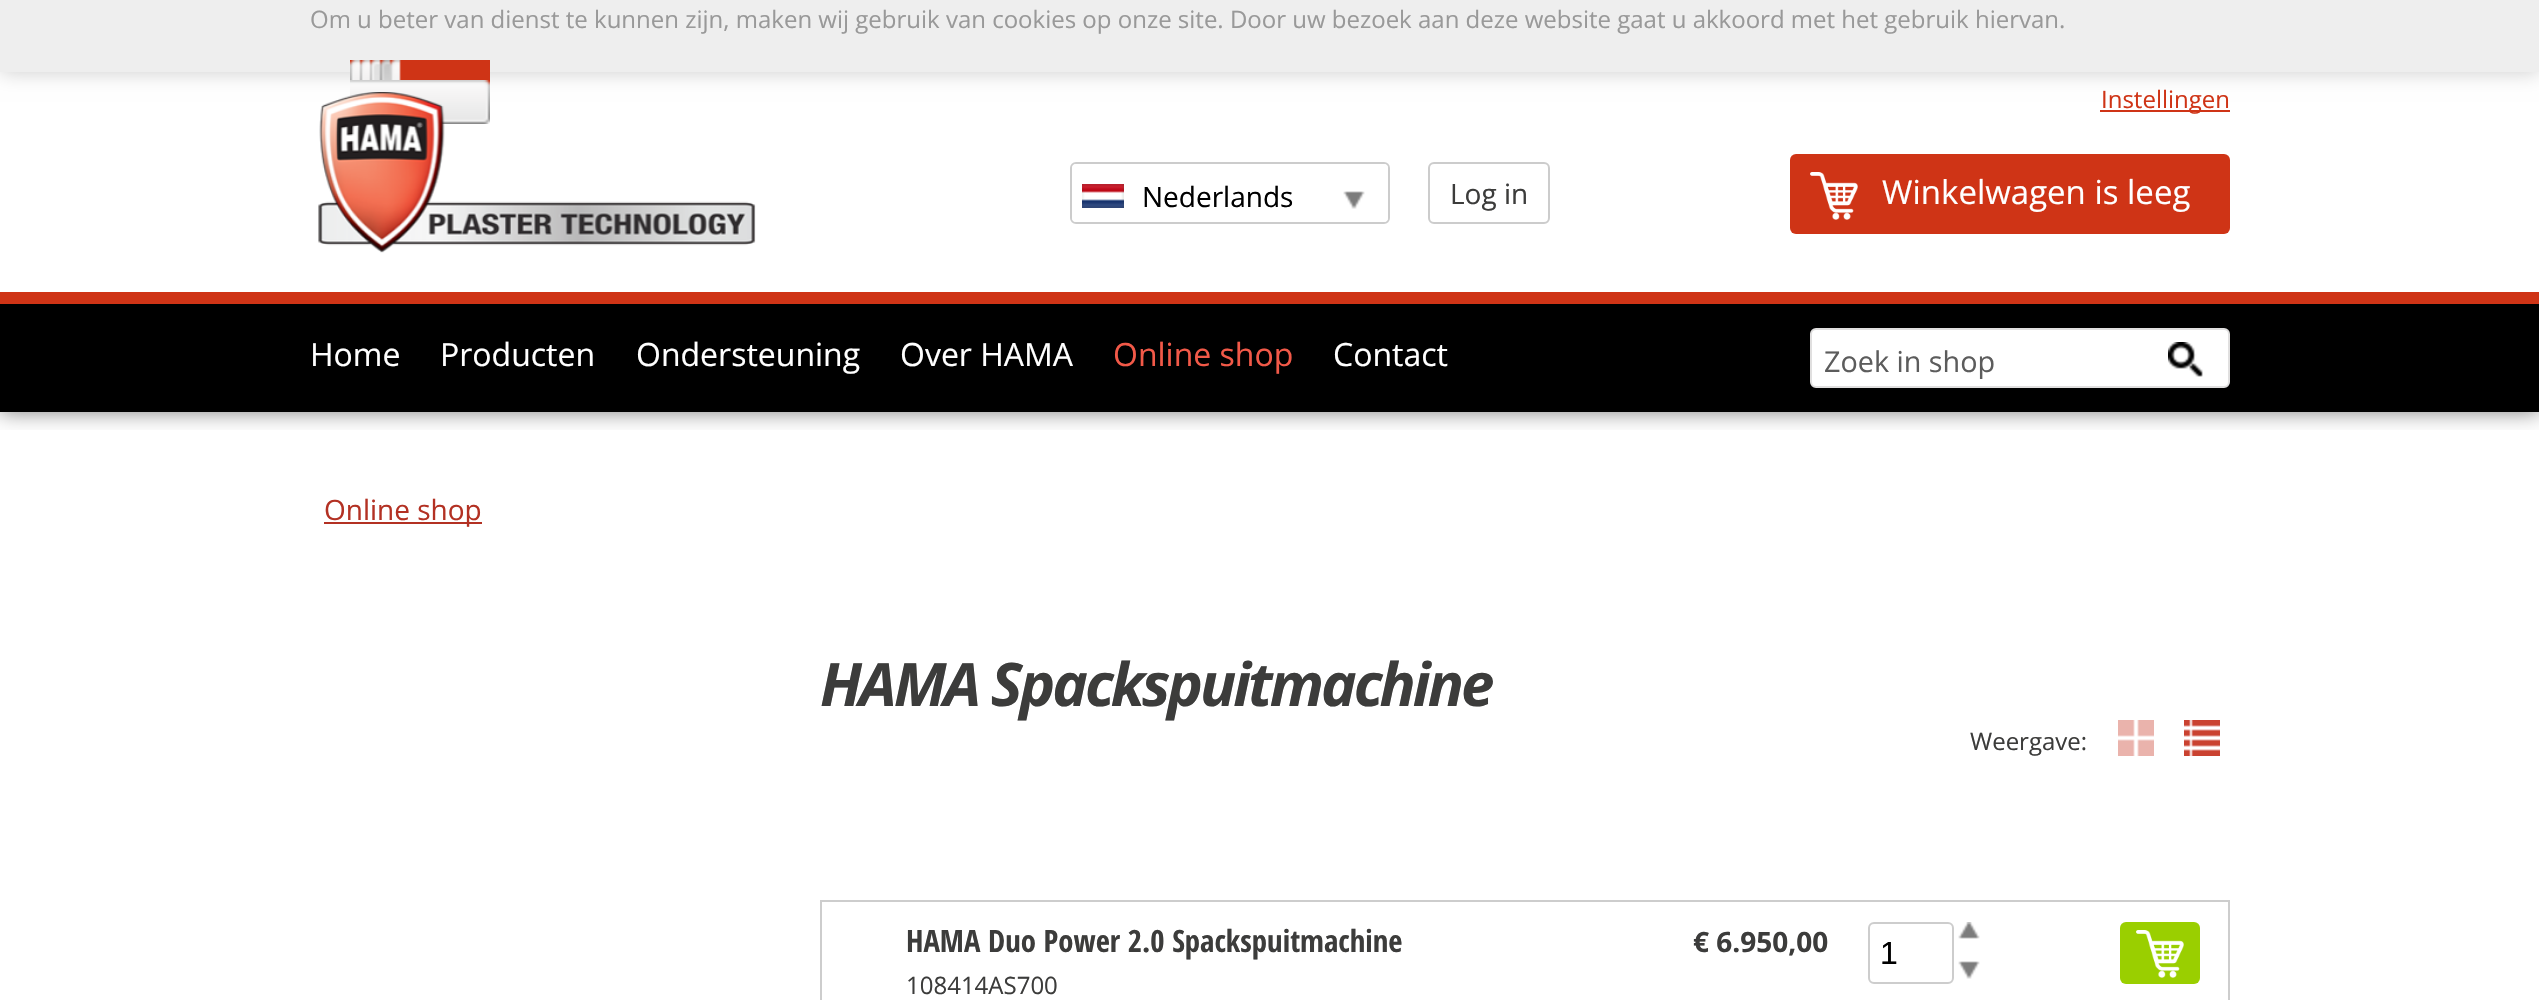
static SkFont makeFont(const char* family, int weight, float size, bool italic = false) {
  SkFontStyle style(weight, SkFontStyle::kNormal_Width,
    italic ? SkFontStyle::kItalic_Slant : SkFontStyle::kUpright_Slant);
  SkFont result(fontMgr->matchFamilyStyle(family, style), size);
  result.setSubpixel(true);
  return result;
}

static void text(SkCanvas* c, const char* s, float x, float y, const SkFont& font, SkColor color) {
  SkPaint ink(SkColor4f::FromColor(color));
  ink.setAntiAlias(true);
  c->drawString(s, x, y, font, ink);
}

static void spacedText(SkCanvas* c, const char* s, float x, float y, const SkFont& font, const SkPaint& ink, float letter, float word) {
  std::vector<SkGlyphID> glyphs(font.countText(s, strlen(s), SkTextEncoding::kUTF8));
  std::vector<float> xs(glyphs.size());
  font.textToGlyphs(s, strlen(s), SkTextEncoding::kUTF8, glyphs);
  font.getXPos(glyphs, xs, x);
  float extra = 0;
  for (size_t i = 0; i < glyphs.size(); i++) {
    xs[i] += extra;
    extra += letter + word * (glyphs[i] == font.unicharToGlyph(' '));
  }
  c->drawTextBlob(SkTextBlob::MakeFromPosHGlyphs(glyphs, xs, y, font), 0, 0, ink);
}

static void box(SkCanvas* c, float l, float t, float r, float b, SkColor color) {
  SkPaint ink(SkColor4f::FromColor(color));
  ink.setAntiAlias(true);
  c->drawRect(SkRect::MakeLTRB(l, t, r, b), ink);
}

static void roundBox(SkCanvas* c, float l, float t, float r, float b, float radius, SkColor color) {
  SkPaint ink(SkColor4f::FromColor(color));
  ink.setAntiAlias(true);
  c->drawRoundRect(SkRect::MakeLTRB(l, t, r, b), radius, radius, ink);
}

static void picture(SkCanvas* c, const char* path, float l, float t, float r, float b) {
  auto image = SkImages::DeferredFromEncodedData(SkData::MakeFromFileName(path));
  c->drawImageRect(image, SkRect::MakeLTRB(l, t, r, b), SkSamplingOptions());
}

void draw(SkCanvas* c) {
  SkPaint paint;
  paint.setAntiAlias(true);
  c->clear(0xffffffff);
  c->save();
  c->clipRect(SkRect::MakeLTRB(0, 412, 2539, 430));
  paint.setColor(0x82000000);
  paint.setMaskFilter(SkMaskFilter::MakeBlur(kNormal_SkBlurStyle, 10));
  c->drawRect(SkRect::MakeLTRB(0, 72, 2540, 412), paint);
  paint.setMaskFilter(nullptr);
  c->restore();
  paint.setColor(0x33000000);
  paint.setMaskFilter(SkMaskFilter::MakeBlur(kNormal_SkBlurStyle, 10));
  c->drawRect(SkRect::MakeLTRB(0, -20, 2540, 72), paint);
  paint.setMaskFilter(nullptr);
  box(c, 0, 0, 2539, 72, 0xffeeeeee);
  SkFont face1 = makeFont("Open Sans", 400, 24);
  text(c, "Om u beter van dienst te kunnen zijn, maken wij gebruik van cookies op onze site. Door uw bezoek aan deze website gaat u akkoord met het gebruik hiervan.", 310, 28, face1, 0xff999999);
  box(c, 350, 60, 490, 87, 0xffcf3416);
  picture(c, "img_01.png", 350, 60, 401, 80);
  picture(c, "img_02.png", 350, 80, 490, 124);
  box(c, 2100, 110, 2230, 112, 0xffcf3416);
  text(c, "Instellingen", 2101, 108, face1, 0xffcf3416);
  picture(c, "img_03.png", 318, 92, 756, 253);
  paint.setStyle(SkPaint::kStroke_Style);
  paint.setStrokeWidth(2);
  paint.setColor(0xffcccccc);
  c->drawRoundRect(SkRect::MakeLTRB(1071, 163, 1389, 223), 5, 5, paint);
  paint.setStyle(SkPaint::kFill_Style);
  paint.setColor(0xffffffff);
  c->drawPath(SkPathBuilder().moveTo(1076, 164).lineTo(1320, 164).lineTo(1320, 222).lineTo(1076, 222).cubicTo(1074, 222, 1072, 220, 1072, 218).lineTo(1072, 168).cubicTo(1072, 166, 1074, 164, 1076, 164).close().detach(), paint);
  picture(c, "img_04.png", 1082, 184, 1124, 208);
  SkFont face2 = makeFont("Open Sans", 400, 28);
  text(c, "Nederlands", 1142, 207, face2, 0xff000000);
  c->drawPath(SkPathBuilder().moveTo(1320, 164).lineTo(1384, 164).cubicTo(1386, 164, 1388, 166, 1388, 168).lineTo(1388, 218).cubicTo(1388, 220, 1386, 222, 1384, 222).lineTo(1320, 222).close().detach(), paint);
  picture(c, "img_05.png", 1343, 191, 1365, 209);
  paint.setStyle(SkPaint::kStroke_Style);
  paint.setColor(0xffcccccc);
  c->drawRoundRect(SkRect::MakeLTRB(1429, 163, 1549, 223), 5, 5, paint);
  text(c, "Log in", 1450, 204, face2, 0xff3c3c3b);
  roundBox(c, 1790, 154, 2230, 234, 6, 0xffcf3416);
  picture(c, "img_06.png", 1810, 172, 1858, 220);
  SkFont face3 = makeFont("Open Sans", 400, 33);
  text(c, "Winkelwagen is leeg", 1882, 204, face3, 0xffffffff);
  box(c, 0, 304, 2539, 412, 0xff000000);
  paint.setStyle(SkPaint::kFill_Style);
  paint.setColor(0xffffffff);
  c->drawRoundRect(SkRect::MakeLTRB(1811, 329, 2229, 387), 5, 5, paint);
  paint.setStyle(SkPaint::kStroke_Style);
  paint.setColor(0xffe0dfdf);
  c->drawRoundRect(SkRect::MakeLTRB(1811, 329, 2229, 387), 5, 5, paint);
  SkFont face4 = makeFont("Open Sans", 400, 28.75f);
  text(c, "Zoek in shop", 1824, 372, face4, 0xff5c5c5c);
  picture(c, "img_07.png", 2168, 342, 2203, 377);
  box(c, 0, 292, 2539, 304, 0xffcf3416);
  SkFont face5 = makeFont("Open Sans", 400, 32);
  text(c, "Home", 310, 366, face5, 0xffffffff);
  text(c, "Producten", 440, 366, face5, 0xffffffff);
  text(c, "Ondersteuning", 636, 366, face5, 0xffffffff);
  text(c, "Over HAMA", 900, 366, face5, 0xffffffff);
  text(c, "Online shop", 1113, 366, face5, 0xfff25948);
  text(c, "Contact", 1333, 366, face5, 0xffffffff);
  box(c, 324, 522, 482, 524, 0xffb33123);
  text(c, "Online shop", 324, 520, face2, 0xffb33123);
  SkFont face6 = makeFont("Open Sans", 700, 60, true);
  paint.setStyle(SkPaint::kFill_Style);
  paint.setColor(0xff3c3c3b);
  spacedText(c, "HAMA Spackspuitmachine", 820, 706, face6, paint, -3, 0);
  text(c, "Weergave:", 1970, 750, face1, 0xff3c3c3b);
  picture(c, "img_08.png", 2118, 720, 2154, 756);
  picture(c, "img_09.png", 2184, 720, 2220, 756);
  paint.setStyle(SkPaint::kStroke_Style);
  paint.setColor(0xffcdcdcd);
  c->drawRect(SkRect::MakeLTRB(821, 901, 2229, 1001), paint);
  SkFont face7 = makeFont("Open Sans Condensed", 700, 30.75f);
  text(c, "HAMA Duo Power 2.0 Spackspuitmachine", 906, 952, face7, 0xff3c3c3b);
  text(c, "108414AS700", 906, 994, face1, 0xff3c3c3b);
  SkFont face8 = makeFont("Open Sans", 700, 28);
  text(c, "€ 6.950,00", 1693, 952, face8, 0xff3c3c3b);
  picture(c, "img_10.png", 1958, 922, 1980, 939);
  c->drawRoundRect(SkRect::MakeLTRB(1869, 923, 1953, 983), 5, 5, paint);
  SkFont face9 = makeFont("Liberation Sans", 400, 32);
  text(c, "1", 1880, 964, face9, 0xff000000);
  picture(c, "img_05.png", 1958, 961, 1980, 979);
  roundBox(c, 2120, 922, 2200, 984, 6, 0xff9acf00);
  picture(c, "img_11.png", 2136, 930, 2184, 978);
}
